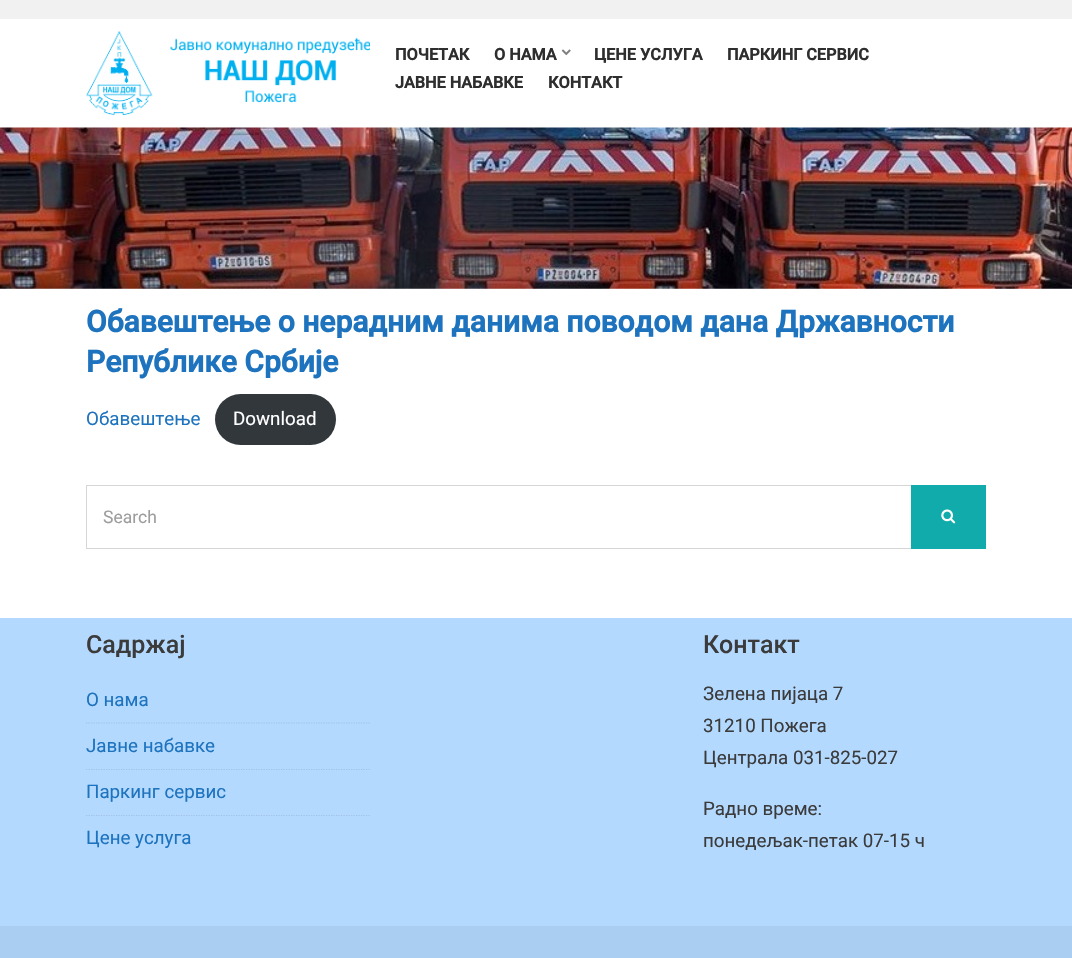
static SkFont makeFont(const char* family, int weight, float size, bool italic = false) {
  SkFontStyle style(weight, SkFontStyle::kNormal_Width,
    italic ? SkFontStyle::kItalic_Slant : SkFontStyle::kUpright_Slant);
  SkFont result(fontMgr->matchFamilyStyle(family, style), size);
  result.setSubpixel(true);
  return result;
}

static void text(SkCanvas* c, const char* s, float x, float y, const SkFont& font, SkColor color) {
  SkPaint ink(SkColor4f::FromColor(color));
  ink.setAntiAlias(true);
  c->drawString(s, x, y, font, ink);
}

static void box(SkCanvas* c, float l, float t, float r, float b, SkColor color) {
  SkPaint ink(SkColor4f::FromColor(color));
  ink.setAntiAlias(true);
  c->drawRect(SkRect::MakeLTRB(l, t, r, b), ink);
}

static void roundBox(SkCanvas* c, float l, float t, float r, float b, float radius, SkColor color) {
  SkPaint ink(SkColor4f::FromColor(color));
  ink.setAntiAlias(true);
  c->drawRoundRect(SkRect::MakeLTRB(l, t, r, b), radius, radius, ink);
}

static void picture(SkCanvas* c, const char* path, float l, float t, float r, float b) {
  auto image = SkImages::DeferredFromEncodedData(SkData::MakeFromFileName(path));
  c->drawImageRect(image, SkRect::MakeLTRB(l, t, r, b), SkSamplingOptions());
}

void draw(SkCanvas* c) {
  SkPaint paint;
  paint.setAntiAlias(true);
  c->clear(0xffffffff);
  box(c, 0, 0, 1072, 19, 0xfff1f1f1);
  picture(c, "img_01.png", 86, 31, 370, 115);
  SkFont face1 = makeFont("Roboto", 700, 16.25f);
  text(c, "ПОЧЕТАК", 395, 60, face1, 0xff2e2e2e);
  text(c, "О НАМА", 494, 60, face1, 0xff2e2e2e);
  picture(c, "img_02.png", 561, 49, 571, 56);
  text(c, "ЦЕНЕ УСЛУГА", 594, 60, face1, 0xff2e2e2e);
  text(c, "ПАРКИНГ СЕРВИС", 727, 60, face1, 0xff2e2e2e);
  text(c, "ЈАВНЕ НАБАВКЕ", 395, 88, face1, 0xff2e2e2e);
  text(c, "КОНТАКТ", 548, 88, face1, 0xff2e2e2e);
  picture(c, "img_03.png", 0, 127, 1072, 289);
  SkFont face2 = makeFont("Roboto", 700, 30);
  text(c, "Обавештење о нерадним данима поводом дана Државности", 86, 332, face2, 0xff1e73be);
  text(c, "Републике Србије", 86, 372, face2, 0xff1e73be);
  SkFont face3 = makeFont("Roboto", 400, 18.75f);
  text(c, "Обавештење", 86, 425, face3, 0xff1e73be);
  roundBox(c, 215, 394, 336, 445, 25.5f, 0xff32373c);
  text(c, "Download", 233, 425, face3, 0xffffffff);
  paint.setStyle(SkPaint::kStroke_Style);
  paint.setStrokeWidth(1);
  paint.setColor(0xffd6d6d6);
  c->drawRect(SkRect::MakeLTRB(86.5f, 485.5f, 985.5f, 548.5f), paint);
  SkFont face4 = makeFont("Roboto", 400, 17.5f);
  text(c, "Search", 103, 523, face4, 0xff9d9d9d);
  box(c, 911, 485, 986, 549, 0xff11abab);
  picture(c, "img_04.png", 941, 509, 956, 524);
  box(c, 0, 618, 1072, 926, 0xffb3d9ff);
  SkFont face5 = makeFont("Roboto", 500, 25);
  text(c, "Садржај", 86, 653, face5, 0xff3b3b3b);
  paint.setStrokeWidth(1.2f);
  paint.setColor(0xffa1c3e6);
  paint.setPathEffect(SkDashPathEffect::Make({{1.25f, 1.25f}}, 0));
  c->drawPath(SkPathBuilder().moveTo(86, 723).lineTo(370, 723).detach(), paint);
  paint.setPathEffect(nullptr);
  text(c, "О нама", 86, 706, face3, 0xff1e73be);
  paint.setPathEffect(SkDashPathEffect::Make({{1.25f, 1.25f}}, 0));
  c->drawPath(SkPathBuilder().moveTo(86, 769.5f).lineTo(370, 769.5f).detach(), paint);
  paint.setPathEffect(nullptr);
  text(c, "Јавне набавке", 86, 752, face3, 0xff1e73be);
  paint.setPathEffect(SkDashPathEffect::Make({{1.25f, 1.25f}}, 0));
  c->drawPath(SkPathBuilder().moveTo(86, 815.5f).lineTo(370, 815.5f).detach(), paint);
  paint.setPathEffect(nullptr);
  text(c, "Паркинг сервис", 86, 798, face3, 0xff1e73be);
  text(c, "Цене услуга", 86, 844, face3, 0xff1e73be);
  text(c, "Контакт", 703, 653, face5, 0xff3b3b3b);
  text(c, "Зелена пијаца 7", 703, 700, face3, 0xff3b3b3b);
  text(c, "31210 Пожега", 703, 732, face3, 0xff3b3b3b);
  text(c, "Централа 031-825-027", 703, 764, face3, 0xff3b3b3b);
  text(c, "Радно време:", 703, 815, face3, 0xff3b3b3b);
  text(c, "понедељак-петак 07-15 ч", 703, 847, face3, 0xff3b3b3b);
  box(c, 0, 926, 1072, 958, 0xffaacef2);
}
